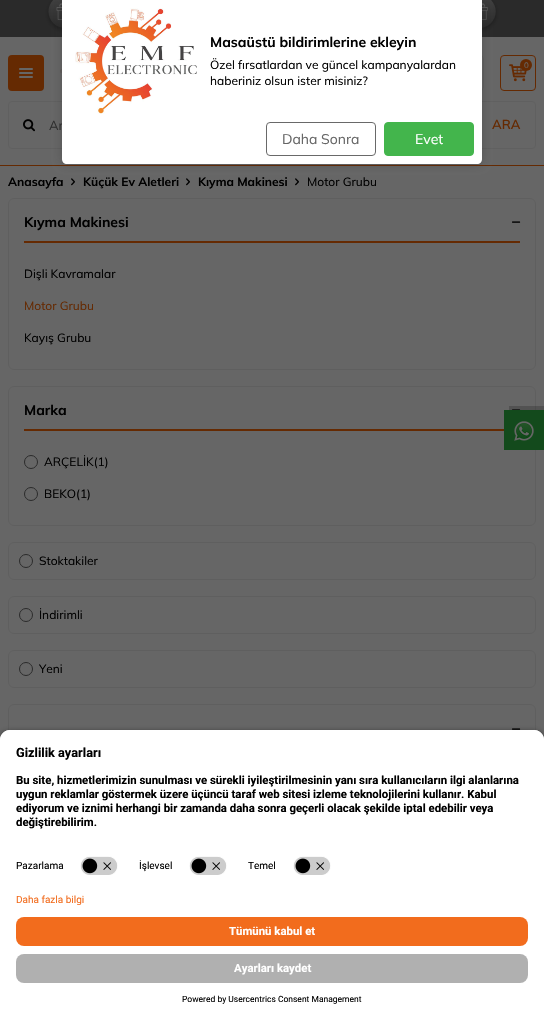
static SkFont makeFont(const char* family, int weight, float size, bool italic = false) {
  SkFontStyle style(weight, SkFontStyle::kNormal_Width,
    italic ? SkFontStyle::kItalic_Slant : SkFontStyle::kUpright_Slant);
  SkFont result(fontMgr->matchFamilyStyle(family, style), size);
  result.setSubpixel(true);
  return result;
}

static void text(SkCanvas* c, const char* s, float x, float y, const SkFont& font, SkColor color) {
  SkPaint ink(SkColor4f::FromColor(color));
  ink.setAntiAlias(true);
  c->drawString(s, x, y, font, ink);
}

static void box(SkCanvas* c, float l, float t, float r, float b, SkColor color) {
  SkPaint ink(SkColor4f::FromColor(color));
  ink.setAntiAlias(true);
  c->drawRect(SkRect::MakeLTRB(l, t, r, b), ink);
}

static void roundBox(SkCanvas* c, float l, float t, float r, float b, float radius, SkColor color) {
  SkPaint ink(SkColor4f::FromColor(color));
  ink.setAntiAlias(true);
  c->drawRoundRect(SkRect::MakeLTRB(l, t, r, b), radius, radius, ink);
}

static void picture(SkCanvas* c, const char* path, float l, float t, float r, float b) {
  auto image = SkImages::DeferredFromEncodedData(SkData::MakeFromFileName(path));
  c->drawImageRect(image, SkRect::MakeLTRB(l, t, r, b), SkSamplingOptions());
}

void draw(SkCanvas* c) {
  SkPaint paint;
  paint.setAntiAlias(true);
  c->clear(0xff666666);
  picture(c, "img_02.png", 0, 0, 544, 37);
  box(c, 0, 165, 544, 166, 0xff652a02);
  paint.setStyle(SkPaint::kStroke_Style);
  paint.setStrokeWidth(1);
  paint.setColor(0xff5f5f5f);
  c->drawRoundRect(SkRect::MakeLTRB(448.5f, 55.5f, 483.5f, 90.5f), 3.5f, 3.5f, paint);
  picture(c, "img_05.png", 60, 69, 62, 80);
  paint.setColor(0xff606060);
  c->drawRoundRect(SkRect::MakeLTRB(8.5f, 101.5f, 535.5f, 148.5f), 3.5f, 3.5f, paint);
  picture(c, "img_07.png", 71, 178, 75, 186);
  picture(c, "img_07.png", 186, 178, 190, 186);
  picture(c, "img_07.png", 295, 178, 299, 186);
  paint.setStyle(SkPaint::kFill_Style);
  paint.setColor(0x4d282828);
  paint.setMaskFilter(SkMaskFilter::MakeBlur(kNormal_SkBlurStyle, 5));
  c->drawRoundRect(SkRect::MakeLTRB(62, 0, 482, 164), 5, 5, paint);
  paint.setMaskFilter(nullptr);
  SkFont face1 = makeFont("Mulish", 400, 13);
  text(c, "Ar", 49, 130, face1, 0xff2f2f2f);
  paint.setColor(0xffffffff);
  c->drawPath(SkPathBuilder().moveTo(62, 0).lineTo(482, 0).lineTo(482, 159).cubicTo(482, 162, 480, 164, 477, 164).lineTo(67, 164).cubicTo(64, 164, 62, 162, 62, 159).close().detach(), paint);
  picture(c, "img_01.png", 75, 8, 197, 114);
  SkFont face2 = makeFont("Mulish", 700, 14);
  text(c, "Masaüstü bildirimlerine ekleyin", 210, 47, face2, 0xff000000);
  SkFont face3 = makeFont("Mulish", 400, 12);
  text(c, "Özel fırsatlardan ve güncel kampanyalardan", 210, 69, face3, 0xff000000);
  text(c, "haberiniz olsun ister misiniz?", 210, 85, face3, 0xff000000);
  paint.setStyle(SkPaint::kStroke_Style);
  paint.setColor(0xff696969);
  c->drawRoundRect(SkRect::MakeLTRB(266.5f, 122.5f, 375.5f, 155.5f), 3.5f, 3.5f, paint);
  SkFont face4 = makeFont("Mulish", 400, 14);
  text(c, "Daha Sonra", 282, 144, face4, 0xff666666);
  paint.setStyle(SkPaint::kFill_Style);
  paint.setColor(0xff43b54c);
  c->drawRoundRect(SkRect::MakeLTRB(384.5f, 122.5f, 473.5f, 155.5f), 3.5f, 3.5f, paint);
  paint.setStyle(SkPaint::kStroke_Style);
  c->drawRoundRect(SkRect::MakeLTRB(384.5f, 122.5f, 473.5f, 155.5f), 3.5f, 3.5f, paint);
  text(c, "Evet", 415, 144, face4, 0xffffffff);
  roundBox(c, 8, 55, 44, 91, 4, 0xff652a02);
  picture(c, "img_03.png", 19, 68, 33, 78);
  paint.setColor(0xff652a02);
  c->drawRoundRect(SkRect::MakeLTRB(500.5f, 55.5f, 535.5f, 90.5f), 3.5f, 3.5f, paint);
  picture(c, "img_04.png", 509, 64, 527, 82);
  paint.setStyle(SkPaint::kFill_Style);
  c->drawCircle(526, 65, 6, paint);
  SkFont face5 = makeFont("Mulish", 500, 8);
  text(c, "0", 524, 68, face5, 0xff666666);
  picture(c, "img_06.png", 23, 119, 35, 132);
  SkFont face6 = makeFont("Mulish", 600, 13);
  text(c, "ARA", 492, 129, face6, 0xff652a02);
  SkFont face7 = makeFont("Mulish", 700, 12);
  text(c, "Anasayfa", 8, 186, face7, 0xff000000);
  text(c, "Küçük Ev Aletleri", 83, 186, face7, 0xff000000);
  text(c, "Kıyma Makinesi", 198, 186, face7, 0xff000000);
  text(c, "Motor Grubu", 307, 186, face3, 0xff000000);
  paint.setStyle(SkPaint::kStroke_Style);
  paint.setColor(0xff5f5f5f);
  c->drawRoundRect(SkRect::MakeLTRB(8.5f, 198.5f, 535.5f, 369.5f), 5.5f, 5.5f, paint);
  box(c, 24, 241, 520, 243, 0xff652a02);
  text(c, "Kıyma Makinesi", 24, 227, face2, 0xff000000);
  picture(c, "img_08.png", 512, 221, 521, 223);
  text(c, "Dişli Kavramalar", 24, 278, face3, 0xff000000);
  text(c, "Motor Grubu", 24, 310, face3, 0xff652a02);
  text(c, "Kayış Grubu", 24, 342, face3, 0xff000000);
  c->drawRoundRect(SkRect::MakeLTRB(8.5f, 386.5f, 535.5f, 525.5f), 5.5f, 5.5f, paint);
  box(c, 24, 429, 504, 431, 0xff652a02);
  text(c, "Marka", 24, 415, face2, 0xff000000);
  picture(c, "img_09.png", 512, 409, 521, 410);
  paint.setColor(0xff2a2a2a);
  c->drawCircle(31, 462, 6.5f, paint);
  text(c, "ARÇELİK(1)", 44, 466, face3, 0xff000000);
  c->drawCircle(31, 494, 6.5f, paint);
  text(c, "BEKO(1)", 44, 498, face3, 0xff000000);
  paint.setColor(0xff5f5f5f);
  c->drawRoundRect(SkRect::MakeLTRB(8.5f, 542.5f, 535.5f, 579.5f), 5.5f, 5.5f, paint);
  paint.setColor(0xff2a2a2a);
  c->drawCircle(26, 561, 6.5f, paint);
  text(c, "Stoktakiler", 39, 565, face3, 0xff000000);
  paint.setColor(0xff5f5f5f);
  c->drawRoundRect(SkRect::MakeLTRB(8.5f, 596.5f, 535.5f, 633.5f), 5.5f, 5.5f, paint);
  paint.setColor(0xff2a2a2a);
  c->drawCircle(26, 615, 6.5f, paint);
  text(c, "İndirimli", 39, 619, face3, 0xff000000);
  paint.setColor(0xff5f5f5f);
  c->drawRoundRect(SkRect::MakeLTRB(8.5f, 650.5f, 535.5f, 687.5f), 5.5f, 5.5f, paint);
  paint.setColor(0xff2a2a2a);
  c->drawCircle(26, 669, 6.5f, paint);
  text(c, "Yeni", 39, 673, face3, 0xff000000);
  paint.setColor(0xff5f5f5f);
  c->drawRoundRect(SkRect::MakeLTRB(8.5f, 704.5f, 535.5f, 815.5f), 5.5f, 5.5f, paint);
  picture(c, "img_08.png", 512, 728, 521, 730);
  paint.setStyle(SkPaint::kFill_Style);
  paint.setColor(0x33000000);
  c->drawPath(SkPathBuilder().moveTo(509, 406).lineTo(509, 410).lineTo(544, 410).lineTo(544, 446).lineTo(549, 446).lineTo(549, 406).close().detach(), paint);
  box(c, 504, 410, 544, 450, 0xff134a1c);
  picture(c, "img_10.png", 514, 421, 534, 441);
  paint.setColor(0xcc000000);
  paint.setMaskFilter(SkMaskFilter::MakeBlur(kNormal_SkBlurStyle, 3.5f));
  c->drawRoundRect(SkRect::MakeLTRB(0, 733, 544, 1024), 10, 10, paint);
  paint.setMaskFilter(nullptr);
  paint.setColor(0xffffffff);
  c->drawPath(SkPathBuilder().moveTo(10, 730).lineTo(534, 730).cubicTo(539.5f, 730, 544, 734.5f, 544, 740).lineTo(544, 894).lineTo(0, 894).lineTo(0, 740).cubicTo(0, 734.5f, 4.5f, 730, 10, 730).close().detach(), paint);
  c->drawPath(SkPathBuilder().moveTo(10, 730).lineTo(534, 730).cubicTo(539.5f, 730, 544, 734.5f, 544, 740).lineTo(544, 850).lineTo(0, 850).lineTo(0, 740).cubicTo(0, 734.5f, 4.5f, 730, 10, 730).close().detach(), paint);
  SkFont face8 = makeFont("Roboto", 700, 12.75f);
  text(c, "Gizlilik ayarları", 16, 757, face8, 0xff000000);
  SkFont face9 = makeFont("Roboto", 700, 11.4f);
  text(c, "Bu site, hizmetlerimizin sunulması ve sürekli iyileştirilmesinin yanı sıra kullanıcıların ilgi alanlarına", 16, 784, face9, 0xff000000);
  text(c, "uygun reklamlar göstermek üzere üçüncü taraf web sitesi izleme teknolojilerini kullanır. Kabul", 16, 798, face9, 0xff000000);
  text(c, "ediyorum ve iznimi herhangi bir zamanda daha sonra geçerli olacak şekilde iptal edebilir veya", 16, 812, face9, 0xff000000);
  text(c, "değiştirebilirim.", 16, 826, face9, 0xff000000);
  SkFont face10 = makeFont("Roboto", 400, 10);
  text(c, "Pazarlama", 16, 869, face10, 0xff000000);
  picture(c, "img_11.png", 80, 856, 118, 875);
  text(c, "İşlevsel", 139, 869, face10, 0xff000000);
  picture(c, "img_11.png", 189, 856, 227, 875);
  text(c, "Temel", 248, 869, face10, 0xff000000);
  picture(c, "img_11.png", 293, 856, 331, 875);
  box(c, 0, 894, 544, 1021, 0xffffffff);
  text(c, "Daha fazla bilgi", 16, 903, face10, 0xfff26c1d);
  roundBox(c, 16, 917, 528, 946, 8, 0xfff26c1d);
  text(c, "Tümünü kabul et", 229, 935, face9, 0xffffffff);
  roundBox(c, 16, 954, 528, 983, 8, 0xffb0b0b0);
  text(c, "Ayarları kaydet", 234, 972, face9, 0xffffffff);
  SkFont face11 = makeFont("Roboto", 400, 8.5f);
  text(c, "Powered by Usercentrics Consent Management", 182, 1002, face11, 0xff000000);
}
